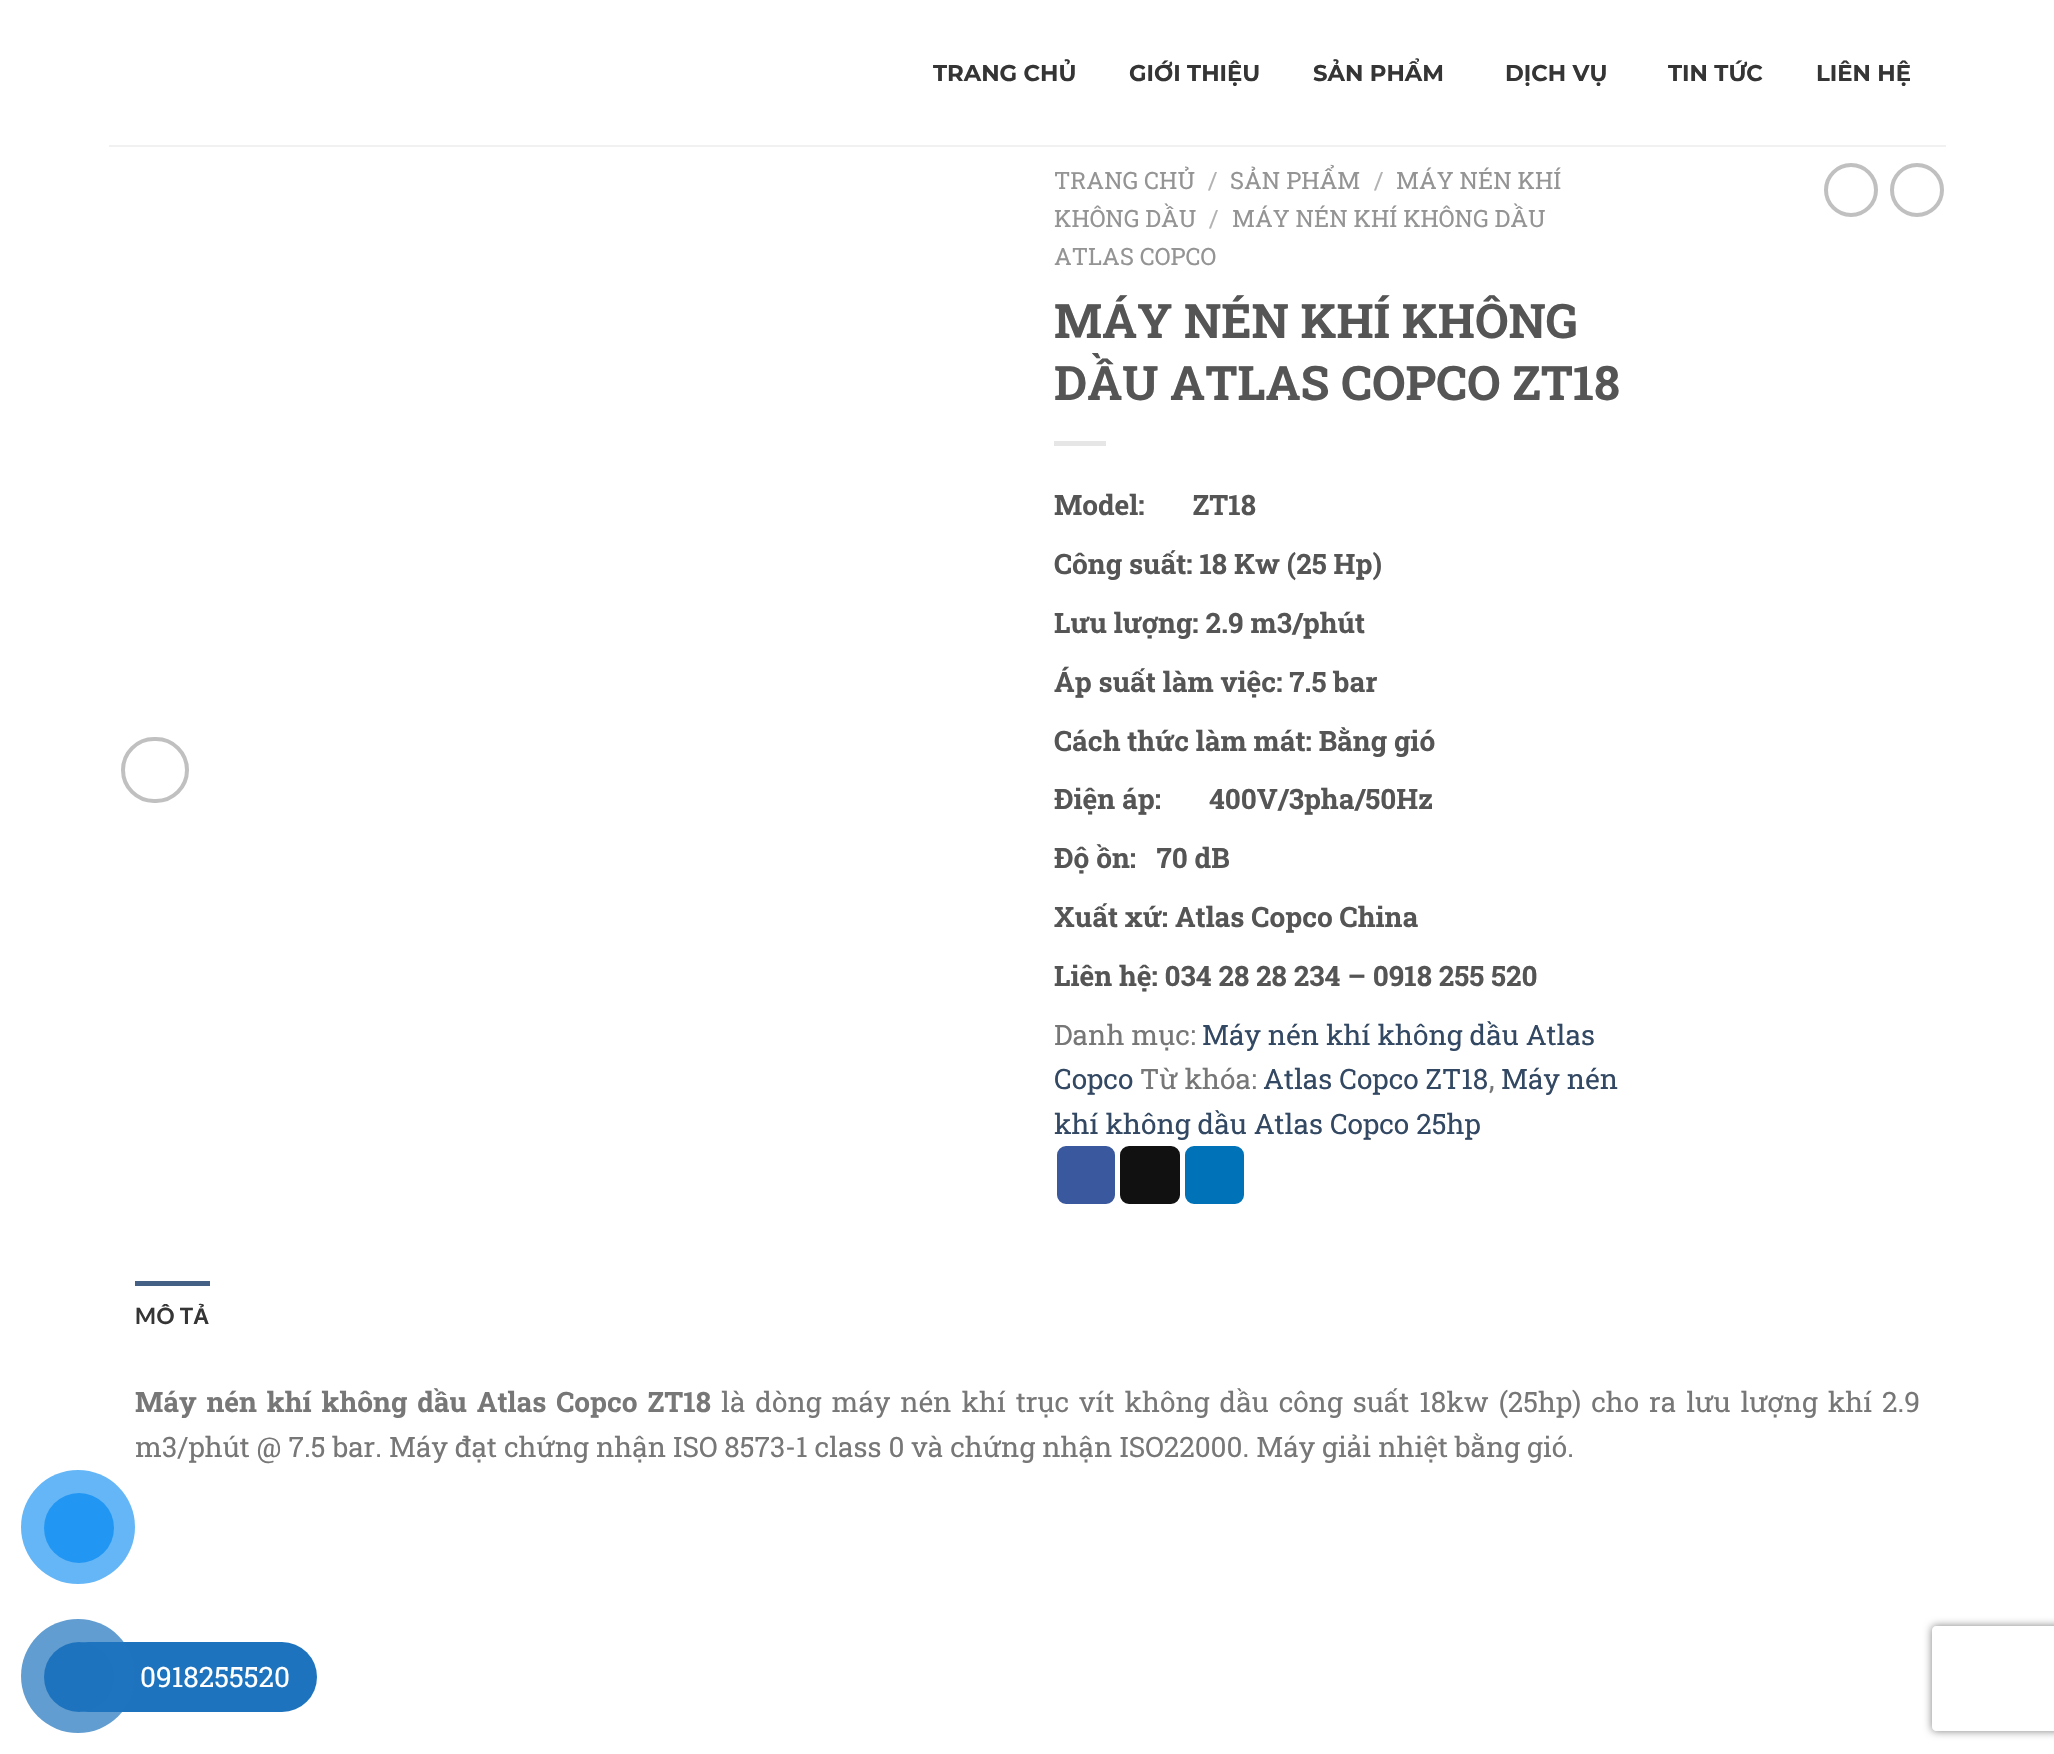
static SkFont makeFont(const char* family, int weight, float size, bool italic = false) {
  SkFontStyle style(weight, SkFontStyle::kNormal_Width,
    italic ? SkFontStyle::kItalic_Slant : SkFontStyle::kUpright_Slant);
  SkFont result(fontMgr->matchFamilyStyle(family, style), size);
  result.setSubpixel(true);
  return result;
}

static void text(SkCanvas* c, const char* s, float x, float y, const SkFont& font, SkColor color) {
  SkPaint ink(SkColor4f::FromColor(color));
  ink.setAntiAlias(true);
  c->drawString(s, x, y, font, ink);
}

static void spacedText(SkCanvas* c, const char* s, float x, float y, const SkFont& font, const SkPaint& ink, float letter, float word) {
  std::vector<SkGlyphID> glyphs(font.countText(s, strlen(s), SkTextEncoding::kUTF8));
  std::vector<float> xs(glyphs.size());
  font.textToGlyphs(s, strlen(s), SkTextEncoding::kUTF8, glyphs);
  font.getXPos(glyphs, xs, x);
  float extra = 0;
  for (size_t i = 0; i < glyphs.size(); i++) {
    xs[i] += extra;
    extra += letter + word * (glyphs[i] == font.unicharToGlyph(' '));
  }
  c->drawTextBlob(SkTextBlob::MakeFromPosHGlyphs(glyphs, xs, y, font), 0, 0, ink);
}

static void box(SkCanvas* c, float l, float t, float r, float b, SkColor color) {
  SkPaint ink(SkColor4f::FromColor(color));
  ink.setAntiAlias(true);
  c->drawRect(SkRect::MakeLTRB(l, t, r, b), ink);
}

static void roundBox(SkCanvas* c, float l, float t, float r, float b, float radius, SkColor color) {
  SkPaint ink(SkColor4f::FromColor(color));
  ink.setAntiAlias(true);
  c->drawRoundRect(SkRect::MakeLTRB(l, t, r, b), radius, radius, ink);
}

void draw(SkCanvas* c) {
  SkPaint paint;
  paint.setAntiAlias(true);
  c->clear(0xffffffff);
  SkFont face1 = makeFont("Montserrat", 700, 22.75f);
  text(c, "TRANG CHỦ", 933, 81, face1, 0xff353535);
  text(c, "GIỚI THIỆU", 1129, 81, face1, 0xff353535);
  text(c, "SẢN PHẨM", 1313, 81, face1, 0xff353535);
  text(c, "DỊCH VỤ", 1505, 81, face1, 0xff353535);
  text(c, "TIN TỨC", 1668, 81, face1, 0xff353535);
  text(c, "LIÊN HỆ", 1816, 81, face1, 0xff353535);
  box(c, 109, 145, 1946, 147, 0xfff1f1f1);
  paint.setStyle(SkPaint::kStroke_Style);
  paint.setStrokeWidth(4);
  paint.setColor(0xffc0c0c0);
  c->drawRoundRect(SkRect::MakeLTRB(123, 739, 187, 801), 31, 31, paint);
  SkFont face2 = makeFont("Roboto Slab", 400, 23.75f);
  text(c, "TRANG CHỦ", 1054, 189, face2, 0xff949494);
  text(c, "/", 1208, 189, face2, 0xffb2b2b2);
  text(c, "SẢN PHẨM", 1230, 189, face2, 0xff949494);
  text(c, "/", 1374, 189, face2, 0xffb2b2b2);
  text(c, "MÁY NÉN KHÍ", 1396, 189, face2, 0xff949494);
  text(c, "KHÔNG DẦU", 1054, 227, face2, 0xff949494);
  text(c, "/", 1209, 227, face2, 0xffb2b2b2);
  text(c, "MÁY NÉN KHÍ KHÔNG DẦU", 1232, 227, face2, 0xff949494);
  text(c, "ATLAS COPCO", 1054, 265, face2, 0xff949494);
  SkFont face3 = makeFont("Roboto Slab", 700, 47.6f);
  text(c, "MÁY NÉN KHÍ KHÔNG", 1054, 338, face3, 0xff555555);
  text(c, "DẦU ATLAS COPCO ZT18", 1054, 400, face3, 0xff555555);
  box(c, 1054, 441, 1106, 446, 0xffe6e6e6);
  SkFont face4 = makeFont("Roboto Slab", 700, 28);
  text(c, "Model:       ZT18", 1054, 515, face4, 0xff555555);
  text(c, "Công suất: 18 Kw (25 Hp)", 1054, 574, face4, 0xff555555);
  text(c, "Lưu lượng: 2.9 m3/phút", 1054, 633, face4, 0xff555555);
  text(c, "Áp suất làm việc: 7.5 bar", 1054, 692, face4, 0xff555555);
  text(c, "Cách thức làm mát: Bằng gió", 1054, 751, face4, 0xff555555);
  text(c, "Điện áp:       400V/3pha/50Hz", 1054, 809, face4, 0xff555555);
  text(c, "Độ ồn:   70 dB", 1054, 868, face4, 0xff555555);
  text(c, "Xuất xứ: Atlas Copco China", 1054, 927, face4, 0xff555555);
  text(c, "Liên hệ: 034 28 28 234 – 0918 255 520", 1054, 986, face4, 0xff555555);
  SkFont face5 = makeFont("Roboto Slab", 400, 28);
  text(c, "Danh mục:", 1054, 1045, face5, 0xff777777);
  text(c, "Máy nén khí không dầu Atlas", 1202, 1045, face5, 0xff334862);
  text(c, "Copco", 1054, 1089, face5, 0xff334862);
  text(c, "Từ khóa:", 1140, 1089, face5, 0xff777777);
  text(c, "Atlas Copco ZT18", 1263, 1089, face5, 0xff334862);
  text(c, ",", 1489, 1089, face5, 0xff777777);
  text(c, "Máy nén", 1501, 1089, face5, 0xff334862);
  text(c, "khí không dầu Atlas Copco 25hp", 1054, 1134, face5, 0xff334862);
  paint.setStyle(SkPaint::kFill_Style);
  paint.setColor(0xff3a589d);
  c->drawRoundRect(SkRect::MakeLTRB(1058, 1147, 1114, 1203), 8, 8, paint);
  paint.setStyle(SkPaint::kStroke_Style);
  paint.setStrokeWidth(2);
  c->drawRoundRect(SkRect::MakeLTRB(1058, 1147, 1114, 1203), 8, 8, paint);
  paint.setStyle(SkPaint::kFill_Style);
  paint.setColor(0xff111111);
  c->drawRoundRect(SkRect::MakeLTRB(1121, 1147, 1179, 1203), 8, 8, paint);
  paint.setStyle(SkPaint::kStroke_Style);
  c->drawRoundRect(SkRect::MakeLTRB(1121, 1147, 1179, 1203), 8, 8, paint);
  paint.setStyle(SkPaint::kFill_Style);
  paint.setColor(0xff0072b7);
  c->drawRoundRect(SkRect::MakeLTRB(1186, 1147, 1243, 1203), 8, 8, paint);
  paint.setStyle(SkPaint::kStroke_Style);
  c->drawRoundRect(SkRect::MakeLTRB(1186, 1147, 1243, 1203), 8, 8, paint);
  paint.setStrokeWidth(4);
  paint.setColor(0xffc0c0c0);
  c->drawCircle(1851, 190, 25, paint);
  c->drawCircle(1917, 190, 25, paint);
  box(c, 135, 1281, 210, 1286, 0xff446084);
  SkFont face6 = makeFont("Lato", 700, 22.5f);
  paint.setStyle(SkPaint::kFill_Style);
  paint.setColor(0xff353535);
  spacedText(c, "MÔ T", 135, 1324, face6, paint, 0.5f, 0);
  SkFont face7 = makeFont("Liberation Sans", 700, 22.5f);
  spacedText(c, "Ả", 193, 1324, face7, paint, 0.5f, 0);
  paint.setColor(0xff777777);
  spacedText(c, "Máy nén khí không dầu Atlas Copco ZT18", 135, 1412, face4, paint, 0, 3);
  spacedText(c, "là dòng máy nén khí trục vít không dầu công suất 18kw (25hp) cho ra lưu lượng khí 2.9", 721, 1412, face5, paint, 0, 3);
  text(c, "m3/phút @ 7.5 bar. Máy đạt chứng nhận ISO 8573-1 class 0 và chứng nhận ISO22000. Máy giải nhiệt bằng gió.", 135, 1457, face5, 0xff777777);
  paint.setColor(0xff64b6f7);
  c->drawCircle(78, 1527, 57, paint);
  paint.setColor(0xff2196f3);
  c->drawCircle(79, 1528, 35, paint);
  roundBox(c, 53, 1642, 317, 1712, 35, 0xff1e73be);
  paint.setColor(0xb31e73be);
  c->drawCircle(78, 1676, 57, paint);
  paint.setColor(0xff1e73be);
  c->drawCircle(79, 1677, 35, paint);
  text(c, "0918255520", 140, 1687, face5, 0xffffffff);
  c->save();
  c->clipPath(SkPathBuilder(SkPathFillType::kEvenOdd).moveTo(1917, 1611).lineTo(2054, 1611).lineTo(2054, 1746).lineTo(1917, 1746).close().moveTo(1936, 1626).lineTo(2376, 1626).cubicTo(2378, 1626, 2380, 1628, 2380, 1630).lineTo(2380, 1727).cubicTo(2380, 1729, 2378, 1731, 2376, 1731).lineTo(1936, 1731).cubicTo(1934, 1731, 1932, 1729, 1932, 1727).lineTo(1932, 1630).cubicTo(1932, 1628, 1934, 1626, 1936, 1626).close().detach(), true);
  paint.setColor(0xff808080);
  paint.setMaskFilter(SkMaskFilter::MakeBlur(kNormal_SkBlurStyle, 4.5f));
  c->drawRoundRect(SkRect::MakeLTRB(1932, 1626, 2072, 1731), 4, 4, paint);
  paint.setMaskFilter(nullptr);
  c->restore();
}
